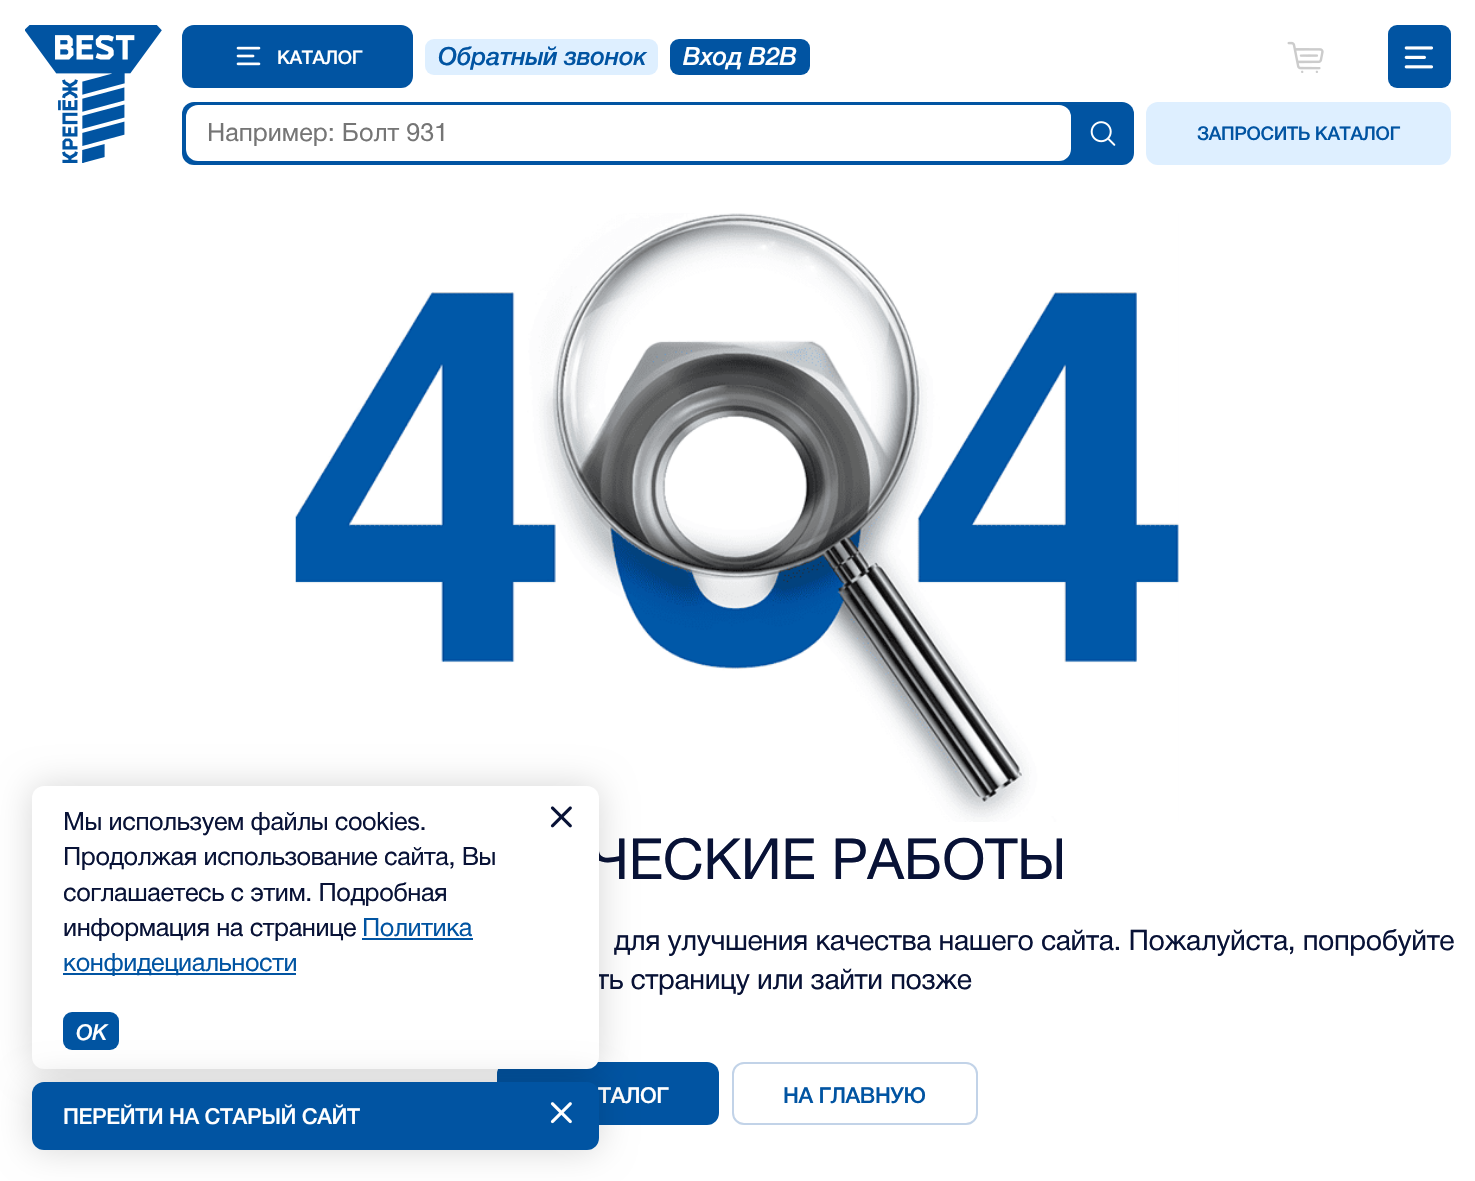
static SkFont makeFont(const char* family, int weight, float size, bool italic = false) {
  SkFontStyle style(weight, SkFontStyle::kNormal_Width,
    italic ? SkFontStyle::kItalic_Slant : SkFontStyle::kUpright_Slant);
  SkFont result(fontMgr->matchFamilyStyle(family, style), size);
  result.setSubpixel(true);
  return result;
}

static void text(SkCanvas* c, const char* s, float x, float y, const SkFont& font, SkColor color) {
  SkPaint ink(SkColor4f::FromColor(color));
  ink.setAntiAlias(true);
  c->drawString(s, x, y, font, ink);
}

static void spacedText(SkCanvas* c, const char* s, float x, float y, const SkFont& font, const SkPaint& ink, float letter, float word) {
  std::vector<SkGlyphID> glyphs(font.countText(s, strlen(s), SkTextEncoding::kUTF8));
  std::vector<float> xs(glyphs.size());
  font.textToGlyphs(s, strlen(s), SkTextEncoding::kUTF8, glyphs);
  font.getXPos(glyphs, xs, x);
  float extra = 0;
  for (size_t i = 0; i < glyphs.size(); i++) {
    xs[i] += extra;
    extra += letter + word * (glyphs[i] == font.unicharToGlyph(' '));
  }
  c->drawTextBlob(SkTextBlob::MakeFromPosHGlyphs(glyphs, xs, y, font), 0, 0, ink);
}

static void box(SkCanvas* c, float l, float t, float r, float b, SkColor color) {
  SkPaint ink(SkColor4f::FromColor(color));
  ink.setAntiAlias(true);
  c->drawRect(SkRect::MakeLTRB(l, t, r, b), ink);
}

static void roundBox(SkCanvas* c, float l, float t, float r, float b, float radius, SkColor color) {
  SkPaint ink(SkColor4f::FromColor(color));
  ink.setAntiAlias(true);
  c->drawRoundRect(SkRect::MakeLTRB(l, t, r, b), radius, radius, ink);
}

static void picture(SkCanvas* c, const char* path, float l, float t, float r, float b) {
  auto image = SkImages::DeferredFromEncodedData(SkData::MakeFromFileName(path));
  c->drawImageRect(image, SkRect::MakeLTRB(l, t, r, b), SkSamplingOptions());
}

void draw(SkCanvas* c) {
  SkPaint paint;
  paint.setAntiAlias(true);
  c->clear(0xffffffff);
  picture(c, "img_01.png", 25, 25, 162, 163);
  roundBox(c, 182, 25, 413, 88, 12, 0xff0154a2);
  picture(c, "img_02.png", 236, 46, 261, 66);
  SkFont face1 = makeFont("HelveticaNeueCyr", 500, 18.9f);
  paint.setColor(0xffffffff);
  spacedText(c, "КАТАЛОГ", 277, 64, face1, paint, -0.4f, 0);
  roundBox(c, 425, 39, 658, 75, 9, 0xffdeefff);
  SkFont face2 = makeFont("HelveticaNeueCyr", 500, 25.25f, true);
  paint.setColor(0xff0154a2);
  spacedText(c, "Обратный звонок", 438, 65, face2, paint, -0.4f, 0);
  roundBox(c, 670, 39, 810, 75, 9, 0xff0154a2);
  paint.setColor(0xffffffff);
  spacedText(c, "Вход В2В", 683, 65, face2, paint, -0.4f, 0);
  picture(c, "img_03.png", 1287, 41, 1324, 73);
  roundBox(c, 1388, 25, 1451, 88, 9, 0xff0154a2);
  picture(c, "img_04.png", 1404, 46, 1433, 69);
  roundBox(c, 182, 102, 1134, 165, 12, 0xff0154a2);
  roundBox(c, 186, 105, 1071, 161, 12, 0xffffffff);
  SkFont face3 = makeFont("HelveticaNeueCyr", 400, 25.25f);
  text(c, "Например: Болт 931", 207, 141, face3, 0xff757575);
  picture(c, "img_05.png", 1090, 121, 1116, 146);
  roundBox(c, 1146, 102, 1451, 165, 12, 0xffdeefff);
  paint.setColor(0xff0154a2);
  spacedText(c, "ЗАПРОСИТЬ КАТАЛОГ", 1197, 140, face1, paint, -0.4f, 0);
  picture(c, "img_06.png", 295, 213, 1179, 822);
  SkFont face4 = makeFont("HelveticaNeueCyr", 400, 56.75f);
  paint.setColor(0xff081236);
  spacedText(c, "ЧЕСКИЕ РАБОТЫ", 591, 879, face4, paint, -0.4f, 0);
  SkFont face5 = makeFont("HelveticaNeueCyr", 400, 28.35f);
  spacedText(c, "для улучшения качества нашего сайта. Пожалуйста, попробуйте", 614, 950, face5, paint, -0.4f, 0);
  spacedText(c, "ть страницу или зайти позже", 596, 989, face5, paint, -0.4f, 0);
  roundBox(c, 497, 1062, 719, 1125, 12, 0xff0154a2);
  SkFont face6 = makeFont("HelveticaNeueCyr", 500, 22);
  paint.setColor(0xffffffff);
  spacedText(c, "ТАЛОГ", 598, 1103, face6, paint, -0.4f, 0);
  paint.setStyle(SkPaint::kStroke_Style);
  paint.setStrokeWidth(2);
  paint.setColor(0xffc2d3e8);
  c->drawRoundRect(SkRect::MakeLTRB(733, 1063, 977, 1124), 11, 11, paint);
  paint.setStyle(SkPaint::kFill_Style);
  paint.setColor(0xff0154a2);
  spacedText(c, "НА ГЛАВНУЮ", 783, 1103, face6, paint, -0.4f, 0);
  paint.setColor(0x29000000);
  paint.setMaskFilter(SkMaskFilter::MakeBlur(kNormal_SkBlurStyle, 17.5f));
  c->drawRoundRect(SkRect::MakeLTRB(32, 786, 599, 1069), 12, 12, paint);
  paint.setMaskFilter(nullptr);
  roundBox(c, 32, 786, 599, 1069, 12, 0xffffffff);
  paint.setColor(0xff081236);
  spacedText(c, "Мы используем файлы cookies.", 63, 830, face3, paint, -0.4f, 0);
  spacedText(c, "Продолжая использование сайта, Вы", 63, 865, face3, paint, -0.4f, 0);
  spacedText(c, "соглашаетесь с этим. Подробная", 63, 901, face3, paint, -0.4f, 0);
  spacedText(c, "информация на странице", 63, 936, face3, paint, -0.4f, 0);
  paint.setColor(0xff0154a2);
  spacedText(c, "Политика", 362, 936, face3, paint, -0.4f, 0);
  box(c, 362, 938, 473, 940, 0xff0154a2);
  box(c, 63, 973, 296, 975, 0xff0154a2);
  spacedText(c, "конфидециальности", 63, 971, face3, paint, -0.4f, 0);
  picture(c, "img_07.png", 550, 806, 572, 828);
  roundBox(c, 63, 1012, 119, 1050, 9, 0xff0154a2);
  SkFont face7 = makeFont("HelveticaNeueCyr", 500, 22, true);
  paint.setColor(0xffffffff);
  spacedText(c, "ОК", 76, 1040, face7, paint, -0.4f, 0);
  paint.setColor(0x29000000);
  paint.setMaskFilter(SkMaskFilter::MakeBlur(kNormal_SkBlurStyle, 17.5f));
  c->drawRoundRect(SkRect::MakeLTRB(32, 1082, 599, 1150), 12, 12, paint);
  paint.setMaskFilter(nullptr);
  roundBox(c, 32, 1082, 599, 1150, 12, 0xff0154a2);
  paint.setColor(0xffffffff);
  spacedText(c, "ПЕРЕЙТИ НА СТАРЫЙ САЙТ", 63, 1124, face6, paint, -0.4f, 0);
  picture(c, "img_08.png", 550, 1102, 572, 1124);
}
